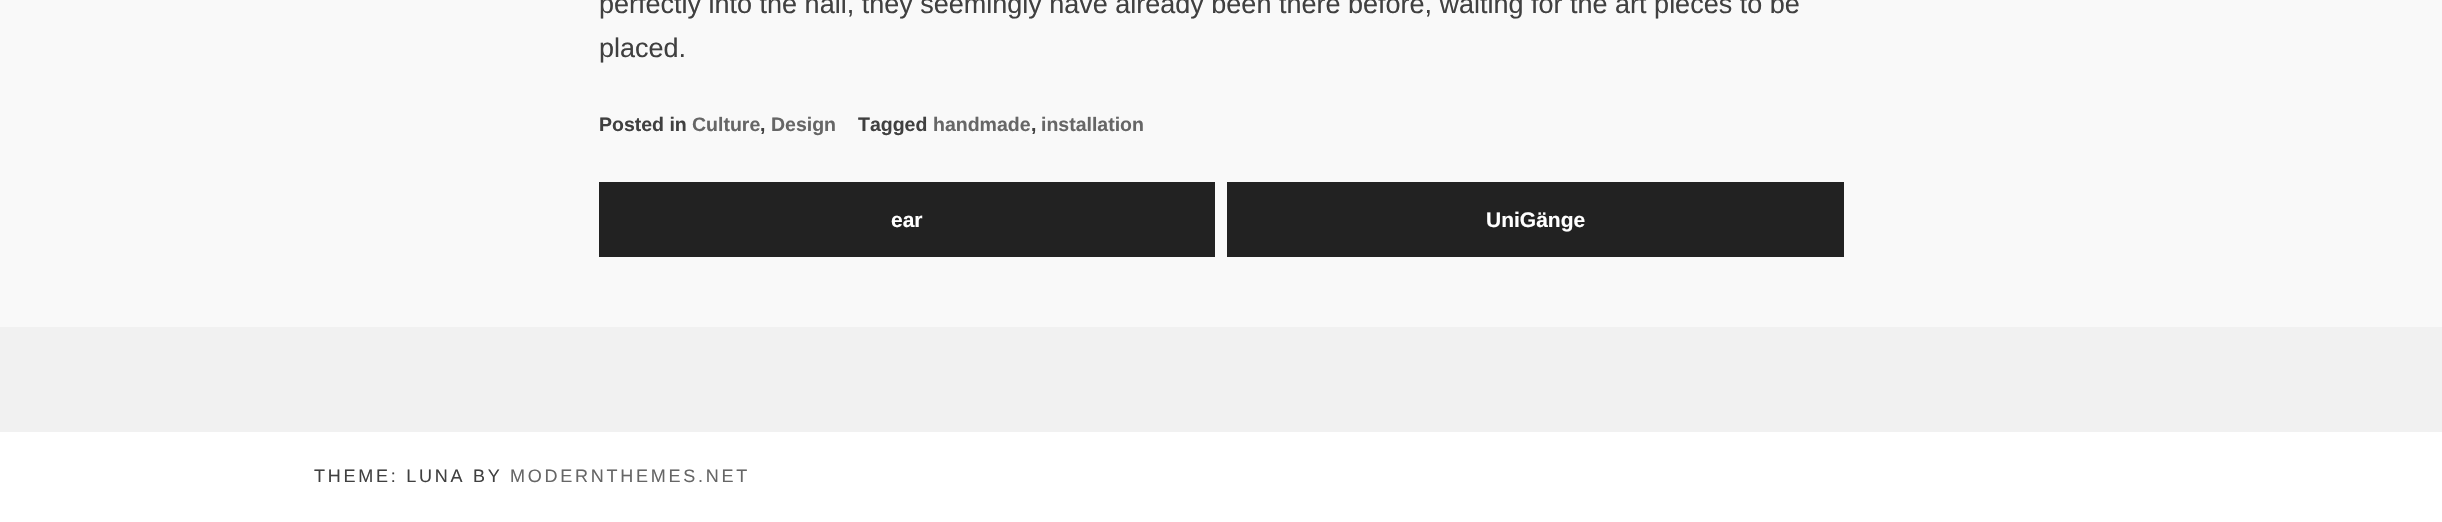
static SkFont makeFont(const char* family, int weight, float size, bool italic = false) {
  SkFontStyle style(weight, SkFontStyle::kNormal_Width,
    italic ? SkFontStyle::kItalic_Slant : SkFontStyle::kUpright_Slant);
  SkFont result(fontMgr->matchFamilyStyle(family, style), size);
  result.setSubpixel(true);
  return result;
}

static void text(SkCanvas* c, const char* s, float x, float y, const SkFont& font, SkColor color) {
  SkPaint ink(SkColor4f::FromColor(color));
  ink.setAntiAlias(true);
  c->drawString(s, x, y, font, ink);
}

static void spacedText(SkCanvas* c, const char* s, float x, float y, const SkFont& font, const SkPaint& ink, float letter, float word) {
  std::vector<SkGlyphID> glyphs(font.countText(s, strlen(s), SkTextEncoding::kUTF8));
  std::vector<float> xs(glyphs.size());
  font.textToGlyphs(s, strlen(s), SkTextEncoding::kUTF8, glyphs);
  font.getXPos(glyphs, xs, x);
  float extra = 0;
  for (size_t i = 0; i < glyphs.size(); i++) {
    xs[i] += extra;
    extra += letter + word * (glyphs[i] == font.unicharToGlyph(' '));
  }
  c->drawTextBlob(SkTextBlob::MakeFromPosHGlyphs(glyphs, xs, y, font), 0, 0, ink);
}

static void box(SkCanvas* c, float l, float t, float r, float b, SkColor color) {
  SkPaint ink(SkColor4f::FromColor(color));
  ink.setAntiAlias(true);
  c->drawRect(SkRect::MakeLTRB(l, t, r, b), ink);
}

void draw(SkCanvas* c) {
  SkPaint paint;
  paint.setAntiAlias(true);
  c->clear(0xfff9f9f9);
  SkFont face1 = makeFont("Liberation Sans", 400, 27);
  text(c, "perfectly into the hall, they seemingly have already been there before, waiting for the art pieces to be", 599, 13, face1, 0xff404040);
  text(c, "placed.", 599, 57, face1, 0xff404040);
  SkFont face2 = makeFont("Liberation Sans", 700, 19.5f);
  text(c, "Posted in", 599, 131, face2, 0xff404040);
  text(c, "Culture", 692, 131, face2, 0xff666666);
  text(c, ",", 760, 131, face2, 0xff404040);
  text(c, "Design", 771, 131, face2, 0xff666666);
  text(c, "Tagged", 858, 131, face2, 0xff404040);
  text(c, "handmade", 933, 131, face2, 0xff666666);
  text(c, ",", 1031, 131, face2, 0xff404040);
  text(c, "installation", 1041, 131, face2, 0xff666666);
  box(c, 599, 182, 1215, 257, 0xff222222);
  SkFont face3 = makeFont("Liberation Sans", 700, 21);
  text(c, "ear", 891, 227, face3, 0xffffffff);
  box(c, 1227, 182, 1844, 257, 0xff222222);
  text(c, "UniGänge", 1486, 227, face3, 0xffffffff);
  box(c, 0, 327, 2442, 432, 0xfff1f1f1);
  box(c, 0, 432, 2442, 522, 0xffffffff);
  SkFont face4 = makeFont("Liberation Sans", 400, 18);
  paint.setColor(0xff404040);
  spacedText(c, "THEME: LUNA BY", 314, 482, face4, paint, 2.75f, 0);
  paint.setColor(0xff666666);
  spacedText(c, "MODERNTHEMES.NET", 510, 482, face4, paint, 2.75f, 0);
}
